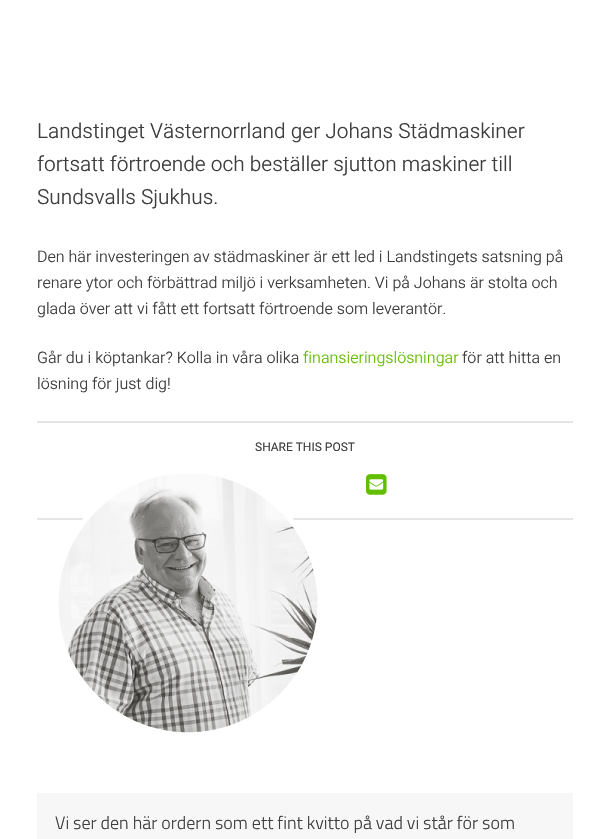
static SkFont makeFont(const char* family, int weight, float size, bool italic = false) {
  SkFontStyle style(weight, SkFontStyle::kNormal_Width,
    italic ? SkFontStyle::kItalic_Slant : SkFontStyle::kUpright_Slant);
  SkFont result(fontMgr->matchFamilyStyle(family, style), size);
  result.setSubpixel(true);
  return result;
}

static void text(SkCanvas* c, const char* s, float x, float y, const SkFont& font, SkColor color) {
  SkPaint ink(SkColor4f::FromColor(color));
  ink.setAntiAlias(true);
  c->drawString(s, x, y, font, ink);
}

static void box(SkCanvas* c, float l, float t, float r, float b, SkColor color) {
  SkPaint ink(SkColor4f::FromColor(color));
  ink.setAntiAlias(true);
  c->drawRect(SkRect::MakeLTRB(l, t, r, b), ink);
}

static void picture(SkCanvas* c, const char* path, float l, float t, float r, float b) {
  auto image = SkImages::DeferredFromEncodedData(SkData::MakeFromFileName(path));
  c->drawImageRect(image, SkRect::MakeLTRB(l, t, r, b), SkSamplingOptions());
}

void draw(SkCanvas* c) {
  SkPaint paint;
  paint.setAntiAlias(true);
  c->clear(0xffffffff);
  SkFont face1 = makeFont("Heebo", 300, 20.8f);
  text(c, "Landstinget Västernorrland ger Johans Städmaskiner", 37, 138, face1, 0xff3e3e3e);
  text(c, "fortsatt förtroende och beställer sjutton maskiner till", 37, 171, face1, 0xff3e3e3e);
  text(c, "Sundsvalls Sjukhus.", 37, 204, face1, 0xff3e3e3e);
  SkFont face2 = makeFont("Heebo", 300, 16);
  text(c, "Den här investeringen av städmaskiner är ett led i Landstingets satsning på", 37, 262, face2, 0xff3e3e3e);
  text(c, "renare ytor och förbättrad miljö i verksamheten. Vi på Johans är stolta och", 37, 288, face2, 0xff3e3e3e);
  text(c, "glada över att vi fått ett fortsatt förtroende som leverantör.", 37, 314, face2, 0xff3e3e3e);
  text(c, "Går du i köptankar? Kolla in våra olika", 37, 363, face2, 0xff3e3e3e);
  text(c, "finansieringslösningar", 303, 363, face2, 0xff64be00);
  text(c, "för att hitta en", 462, 363, face2, 0xff3e3e3e);
  text(c, "lösning för just dig!", 37, 389, face2, 0xff3e3e3e);
  box(c, 37, 421, 573, 423, 0xffe5e5e5);
  box(c, 37, 518, 573, 520, 0xffe5e5e5);
  SkFont face3 = makeFont("Heebo", 400, 12);
  text(c, "SHARE THIS POST", 255, 451, face3, 0xff3e3e3e);
  picture(c, "img_01.png", 366, 474, 387, 495);
  picture(c, "img_02.png", 58, 474, 318, 733);
  box(c, 37, 793, 573, 839, 0xfff7f7f7);
  SkFont face4 = makeFont("Titillium Web", 300, 18);
  text(c, "Vi ser den här ordern som ett fint kvitto på vad vi står för som", 55, 829, face4, 0xff3e3e3e);
}
